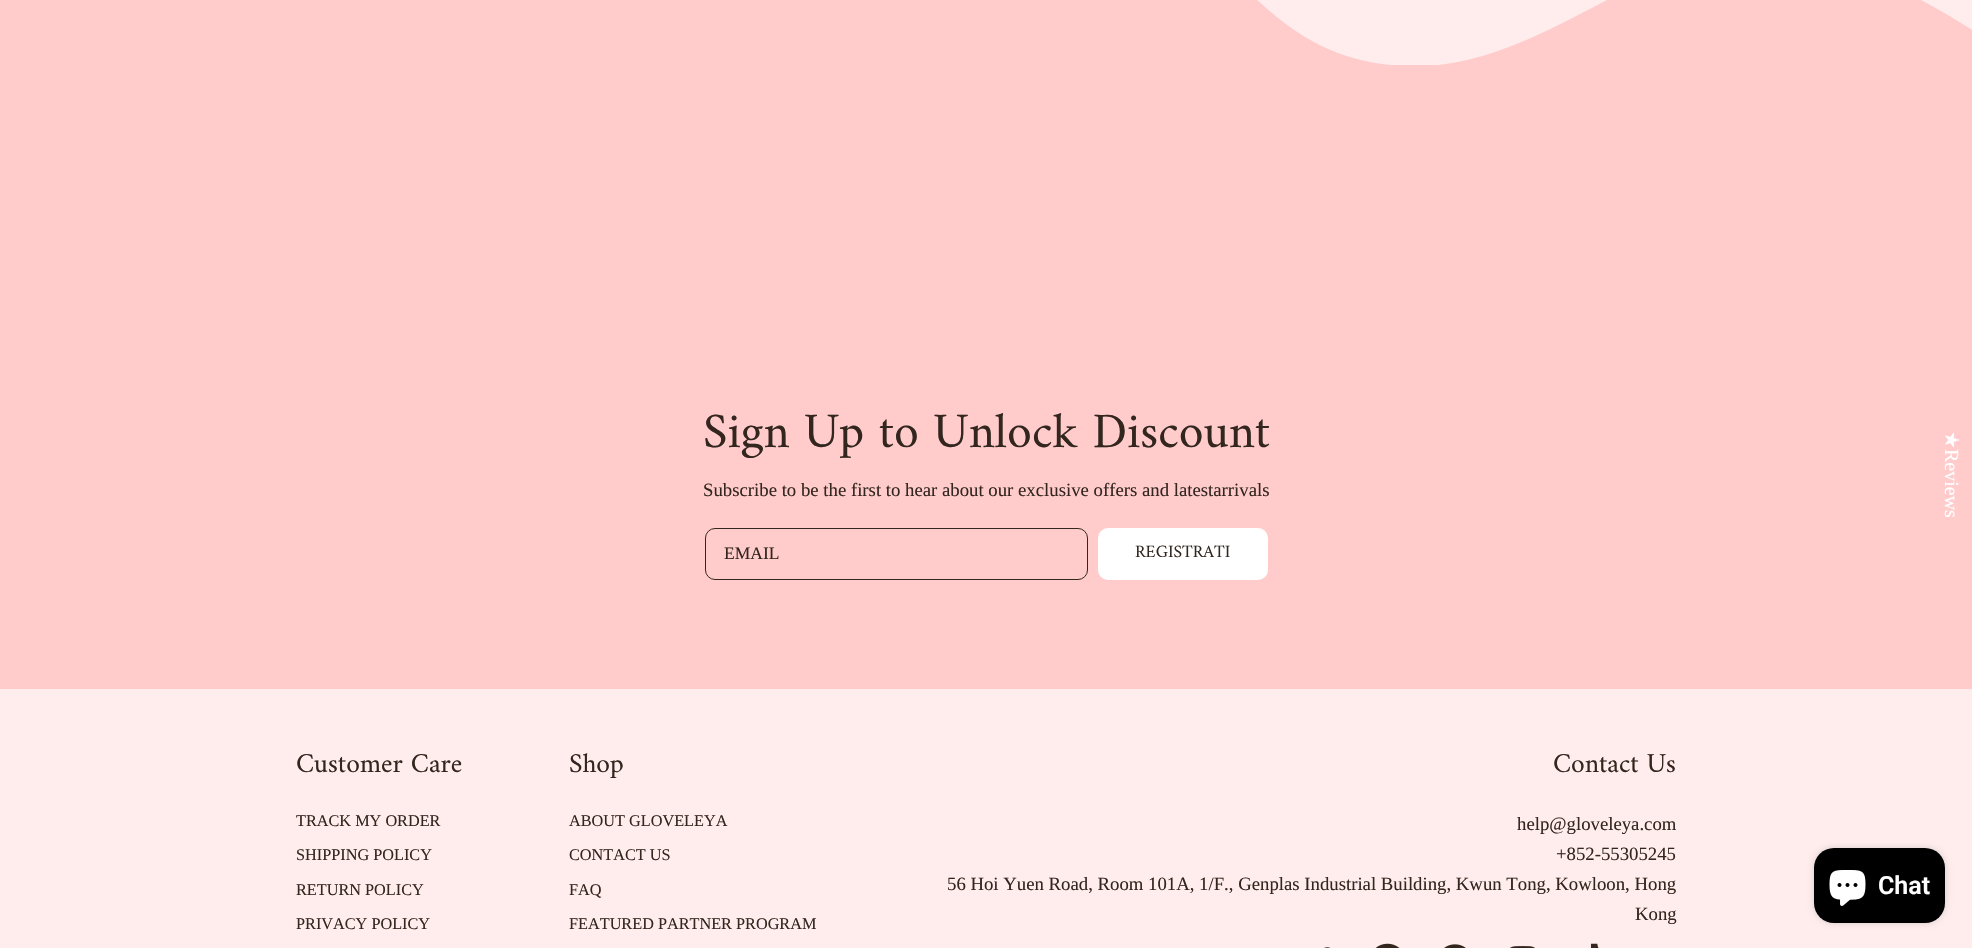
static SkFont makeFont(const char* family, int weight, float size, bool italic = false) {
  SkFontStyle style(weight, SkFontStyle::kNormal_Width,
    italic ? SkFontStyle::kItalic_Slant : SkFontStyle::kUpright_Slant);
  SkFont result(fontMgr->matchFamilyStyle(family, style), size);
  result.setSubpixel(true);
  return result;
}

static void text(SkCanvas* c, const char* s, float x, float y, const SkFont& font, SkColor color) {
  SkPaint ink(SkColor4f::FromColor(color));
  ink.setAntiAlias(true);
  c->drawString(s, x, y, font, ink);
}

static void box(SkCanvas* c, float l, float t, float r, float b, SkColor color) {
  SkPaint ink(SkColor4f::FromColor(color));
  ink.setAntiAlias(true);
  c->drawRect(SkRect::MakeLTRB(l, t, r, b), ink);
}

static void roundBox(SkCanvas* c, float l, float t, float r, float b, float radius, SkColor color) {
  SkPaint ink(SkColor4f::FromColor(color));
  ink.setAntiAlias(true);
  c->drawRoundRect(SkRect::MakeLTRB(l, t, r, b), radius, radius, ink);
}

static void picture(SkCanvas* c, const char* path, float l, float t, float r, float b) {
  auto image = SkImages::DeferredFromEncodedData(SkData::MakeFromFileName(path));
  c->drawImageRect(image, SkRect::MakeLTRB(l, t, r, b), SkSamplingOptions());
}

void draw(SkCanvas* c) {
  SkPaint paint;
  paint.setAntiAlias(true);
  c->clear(0xffffeded);
  box(c, 0, 0, 1972, 689, 0xffffcbcb);
  picture(c, "img_01.png", 1257, 0, 1972, 65);
  SkFont face1 = makeFont("Amiri", 400, 50);
  text(c, "Sign Up to Unlock Discount", 703, 447, face1, 0xff32261e);
  SkFont face2 = makeFont("Liberation Serif", 400, 18.75f);
  text(c, "Subscribe to be the first to hear about our exclusive offers and latestarrivals", 703, 496, face2, 0xff32261e);
  paint.setStyle(SkPaint::kStroke_Style);
  paint.setStrokeWidth(1);
  paint.setColor(0xff32261e);
  c->drawRoundRect(SkRect::MakeLTRB(705.5f, 528.5f, 1087.5f, 579.5f), 9.5f, 9.5f, paint);
  SkFont face3 = makeFont("Liberation Serif", 400, 17.5f);
  text(c, "EMAIL", 724, 559, face3, 0xff32261e);
  roundBox(c, 1098, 528, 1268, 580, 10, 0xffffffff);
  SkFont face4 = makeFont("Amiri", 400, 17.5f);
  text(c, "REGISTRATI", 1135, 557, face4, 0xff32261e);
  SkFont face5 = makeFont("Amiri", 400, 27.5f);
  text(c, "Customer Care", 296, 772, face5, 0xff32261e);
  SkFont face6 = makeFont("Liberation Serif", 400, 16.25f);
  text(c, "TRACK MY ORDER", 296, 826, face6, 0xff32261e);
  text(c, "SHIPPING POLICY", 296, 860, face6, 0xff32261e);
  text(c, "RETURN POLICY", 296, 895, face6, 0xff32261e);
  text(c, "PRIVACY POLICY", 296, 929, face6, 0xff32261e);
  text(c, "Shop", 569, 772, face5, 0xff32261e);
  text(c, "ABOUT GLOVELEYA", 569, 826, face6, 0xff32261e);
  text(c, "CONTACT US", 569, 860, face6, 0xff32261e);
  text(c, "FAQ", 569, 895, face6, 0xff32261e);
  text(c, "FEATURED PARTNER PROGRAM", 569, 929, face6, 0xff32261e);
  text(c, "Contact Us", 1553, 772, face5, 0xff32261e);
  text(c, "help@gloveleya.com", 1517, 830, face2, 0xff32261e);
  text(c, "+852-55305245", 1556, 860, face2, 0xff32261e);
  text(c, "56 Hoi Yuen Road, Room 101A, 1/F., Genplas Industrial Building, Kwun Tong, Kowloon, Hong", 947, 890, face2, 0xff32261e);
  text(c, "Kong", 1635, 920, face2, 0xff32261e);
  picture(c, "img_02.png", 1324, 947, 1331, 948);
  picture(c, "img_03.png", 1375, 943, 1400, 948);
  picture(c, "img_04.png", 1444, 944, 1466, 948);
  picture(c, "img_05.png", 1510, 946, 1535, 948);
  picture(c, "img_06.png", 1590, 943, 1599, 948);
  SkFont face7 = makeFont("DejaVu Sans", 400, 20);
  c->save();
  c->rotate(90, 1945, 431);
  text(c, "★", 1945, 431, face7, 0xffffffff);
  c->restore();
  SkFont face8 = makeFont("Liberation Serif", 400, 20);
  c->save();
  c->rotate(90, 1945, 449);
  text(c, "Reviews", 1945, 449, face8, 0xffffffff);
  c->restore();
  paint.setStyle(SkPaint::kFill_Style);
  paint.setColor(0x26000000);
  paint.setMaskFilter(SkMaskFilter::MakeBlur(kNormal_SkBlurStyle, 3));
  c->drawRoundRect(SkRect::MakeLTRB(1814, 848, 1945, 923), 20, 20, paint);
  paint.setMaskFilter(nullptr);
  roundBox(c, 1814, 848, 1945, 923, 20, 0xff000000);
  picture(c, "img_07.png", 1829, 870, 1866, 906);
  SkFont face9 = makeFont("Roboto", 600, 25);
  text(c, "Chat", 1878, 894, face9, 0xffffffff);
}
